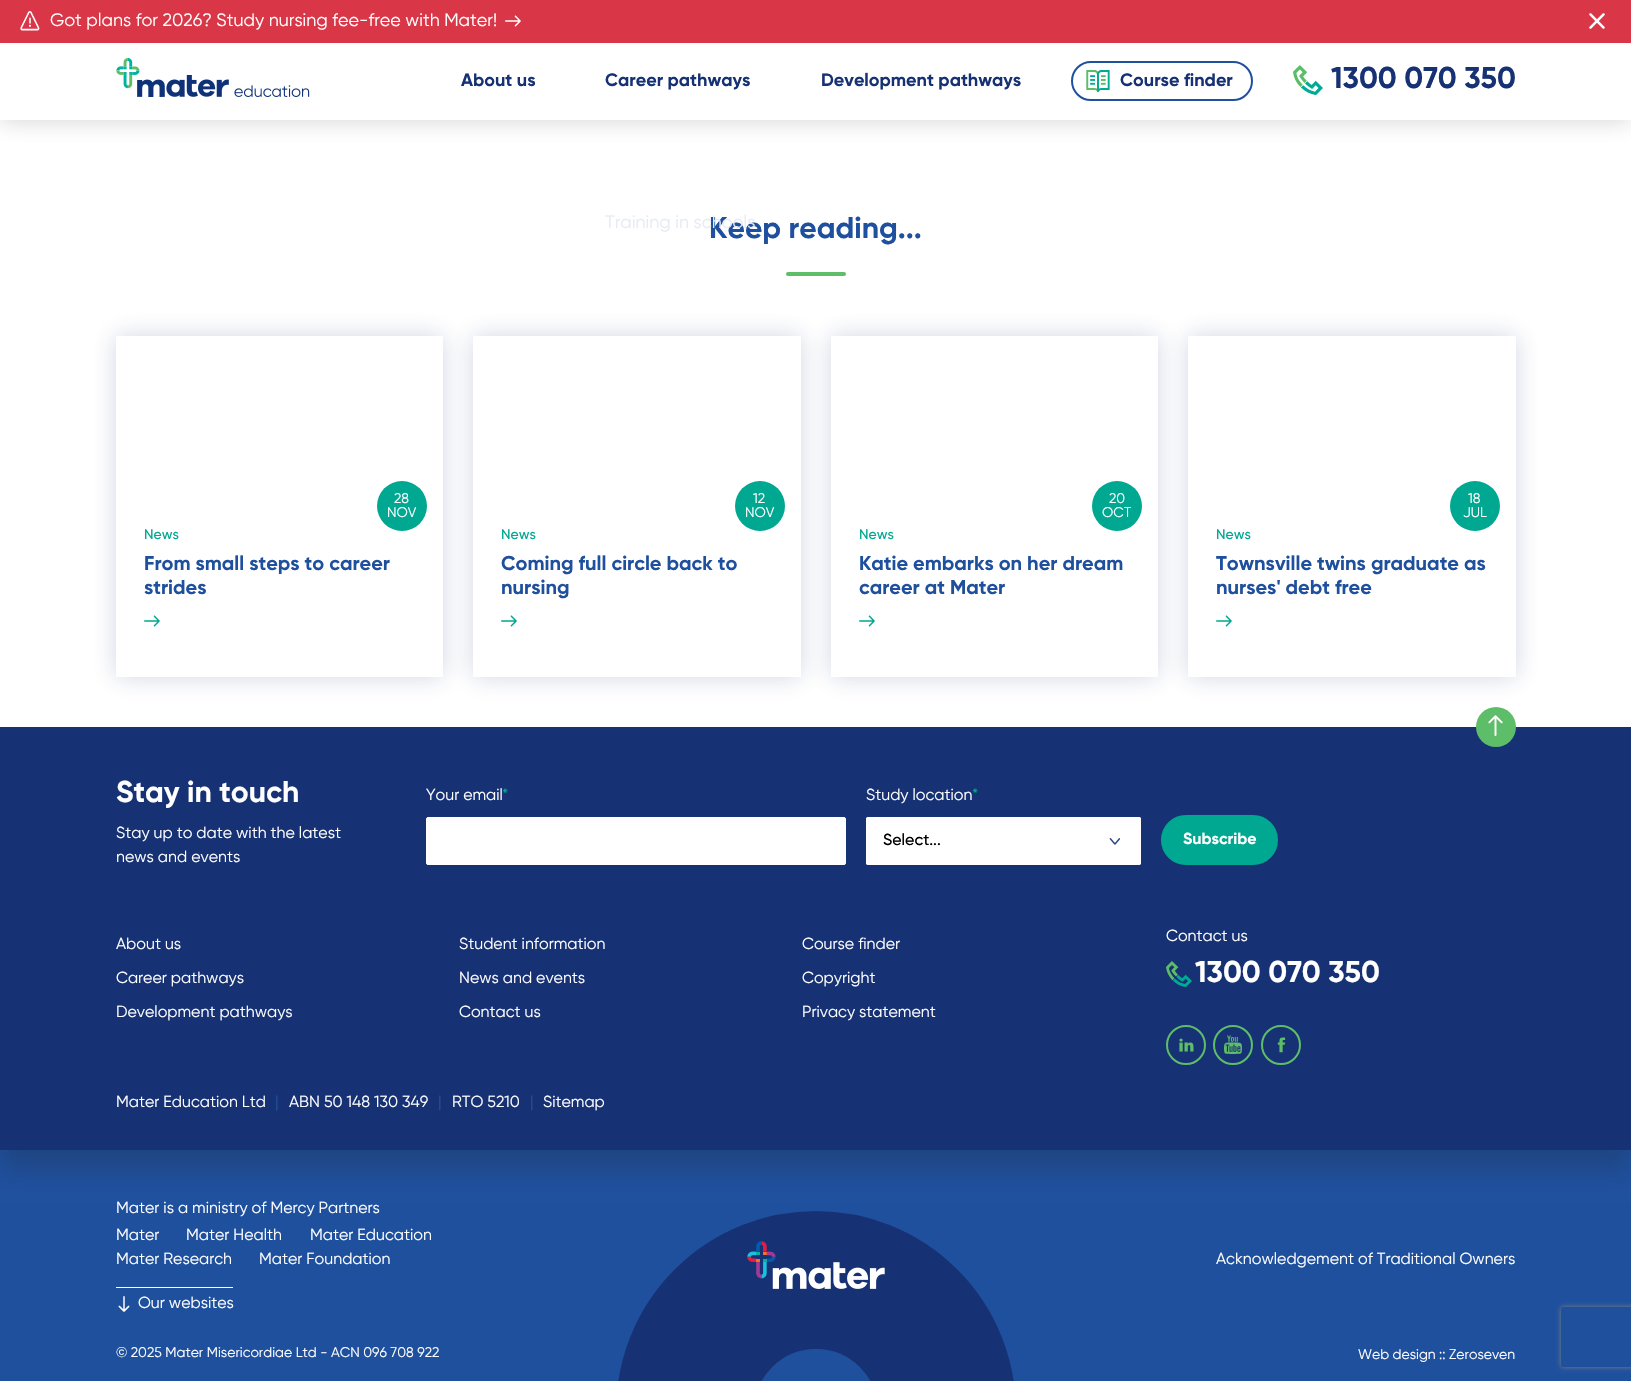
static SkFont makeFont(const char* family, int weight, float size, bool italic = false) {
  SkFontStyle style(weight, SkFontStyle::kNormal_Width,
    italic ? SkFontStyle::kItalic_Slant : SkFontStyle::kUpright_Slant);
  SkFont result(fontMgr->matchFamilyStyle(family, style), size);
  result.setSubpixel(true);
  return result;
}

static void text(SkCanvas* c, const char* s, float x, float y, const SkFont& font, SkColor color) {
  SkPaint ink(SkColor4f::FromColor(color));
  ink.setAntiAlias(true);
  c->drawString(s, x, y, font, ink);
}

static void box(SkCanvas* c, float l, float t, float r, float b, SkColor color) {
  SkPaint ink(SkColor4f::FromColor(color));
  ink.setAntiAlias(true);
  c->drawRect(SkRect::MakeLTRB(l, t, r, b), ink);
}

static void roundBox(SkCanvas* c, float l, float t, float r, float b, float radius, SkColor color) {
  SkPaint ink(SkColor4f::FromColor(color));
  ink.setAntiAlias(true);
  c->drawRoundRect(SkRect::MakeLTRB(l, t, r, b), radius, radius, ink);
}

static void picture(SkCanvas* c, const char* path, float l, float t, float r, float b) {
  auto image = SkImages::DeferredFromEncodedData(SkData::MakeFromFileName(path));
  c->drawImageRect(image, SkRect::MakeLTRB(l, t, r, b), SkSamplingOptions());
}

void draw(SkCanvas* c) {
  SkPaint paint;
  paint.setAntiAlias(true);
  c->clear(0xffffffff);
  paint.setColor(0x33191919);
  paint.setMaskFilter(SkMaskFilter::MakeBlur(kNormal_SkBlurStyle, 11.5f));
  c->drawRect(SkRect::MakeLTRB(0, 0, 1631, 120), paint);
  paint.setMaskFilter(nullptr);
  box(c, 0, 43, 1631, 120, 0xffffffff);
  box(c, 0, 0, 1631, 43, 0xffd93647);
  picture(c, "img_01.png", 20, 11, 40, 31);
  SkFont face1 = makeFont("Gilroy", 400, 18);
  text(c, "Got plans for 2026? Study nursing fee-free with Mater!", 50, 26, face1, 0xffffffff);
  picture(c, "img_02.png", 505, 15, 521, 27);
  picture(c, "img_03.png", 1589, 13, 1605, 29);
  picture(c, "img_04.png", 116, 58, 310, 97);
  SkFont face2 = makeFont("Gilroy", 700, 18);
  text(c, "About us", 461, 86, face2, 0xff173274);
  text(c, "Career pathways", 605, 86, face2, 0xff173274);
  SkFont face3 = makeFont("Gilroy", 700, 30);
  text(c, "Keep reading...", 709, 238, face3, 0xff1f509e);
  text(c, "Training in schools", 605, 228, face1, 0xffe6ebf4);
  text(c, "Development pathways", 821, 86, face2, 0xff173274);
  paint.setStyle(SkPaint::kStroke_Style);
  paint.setStrokeWidth(2);
  paint.setColor(0xff1f509e);
  c->drawRoundRect(SkRect::MakeLTRB(1072, 62, 1252, 100), 19, 19, paint);
  picture(c, "img_05.png", 1086, 70, 1110, 92);
  text(c, "Course finder", 1120, 86, face2, 0xff173274);
  picture(c, "img_06.png", 1293, 65, 1323, 95);
  text(c, "1300 070 350", 1331, 88, face3, 0xff173274);
  roundBox(c, 786, 272, 846, 276, 2, 0xff5ebd69);
  c->save();
  c->clipPath(SkPathBuilder(SkPathFillType::kEvenOdd).moveTo(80, 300).lineTo(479, 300).lineTo(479, 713).lineTo(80, 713).close().moveTo(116, 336).lineTo(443, 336).lineTo(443, 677).lineTo(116, 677).close().detach(), true);
  paint.setStyle(SkPaint::kFill_Style);
  paint.setColor(0x33173274);
  paint.setMaskFilter(SkMaskFilter::MakeBlur(kNormal_SkBlurStyle, 11.5f));
  c->drawRect(SkRect::MakeLTRB(116, 336, 443, 677), paint);
  paint.setMaskFilter(nullptr);
  c->restore();
  paint.setColor(0xff00a791);
  c->drawCircle(402, 506, 25, paint);
  SkFont face4 = makeFont("Gilroy", 400, 14);
  text(c, "28", 394, 503, face4, 0xffffffff);
  text(c, "NOV", 387, 517, face4, 0xffffffff);
  SkFont face5 = makeFont("Gilroy", 500, 14);
  text(c, "News", 144, 539, face5, 0xff00a791);
  SkFont face6 = makeFont("Gilroy", 700, 20);
  text(c, "From small steps to career", 144, 570, face6, 0xff1f509e);
  text(c, "strides", 144, 594, face6, 0xff1f509e);
  picture(c, "img_07.png", 144, 615, 160, 627);
  c->save();
  c->clipPath(SkPathBuilder(SkPathFillType::kEvenOdd).moveTo(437, 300).lineTo(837, 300).lineTo(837, 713).lineTo(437, 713).close().moveTo(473, 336).lineTo(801, 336).lineTo(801, 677).lineTo(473, 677).close().detach(), true);
  paint.setColor(0x33173274);
  paint.setMaskFilter(SkMaskFilter::MakeBlur(kNormal_SkBlurStyle, 11.5f));
  c->drawRect(SkRect::MakeLTRB(473, 336, 801, 677), paint);
  paint.setMaskFilter(nullptr);
  c->restore();
  paint.setColor(0xff00a791);
  c->drawCircle(760, 506, 25, paint);
  text(c, "12", 753, 503, face4, 0xffffffff);
  text(c, "NOV", 745, 517, face4, 0xffffffff);
  text(c, "News", 501, 539, face5, 0xff00a791);
  text(c, "Coming full circle back to", 501, 570, face6, 0xff1f509e);
  text(c, "nursing", 501, 594, face6, 0xff1f509e);
  picture(c, "img_08.png", 501, 615, 517, 627);
  c->save();
  c->clipPath(SkPathBuilder(SkPathFillType::kEvenOdd).moveTo(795, 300).lineTo(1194, 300).lineTo(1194, 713).lineTo(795, 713).close().moveTo(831, 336).lineTo(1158, 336).lineTo(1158, 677).lineTo(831, 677).close().detach(), true);
  paint.setColor(0x33173274);
  paint.setMaskFilter(SkMaskFilter::MakeBlur(kNormal_SkBlurStyle, 11.5f));
  c->drawRect(SkRect::MakeLTRB(831, 336, 1158, 677), paint);
  paint.setMaskFilter(nullptr);
  c->restore();
  paint.setColor(0xff00a791);
  c->drawCircle(1117, 506, 25, paint);
  text(c, "20", 1109, 503, face4, 0xffffffff);
  text(c, "OCT", 1102, 517, face4, 0xffffffff);
  text(c, "News", 859, 539, face5, 0xff00a791);
  text(c, "Katie embarks on her dream", 859, 570, face6, 0xff1f509e);
  text(c, "career at Mater", 859, 594, face6, 0xff1f509e);
  picture(c, "img_07.png", 859, 615, 875, 627);
  c->save();
  c->clipPath(SkPathBuilder(SkPathFillType::kEvenOdd).moveTo(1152, 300).lineTo(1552, 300).lineTo(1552, 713).lineTo(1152, 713).close().moveTo(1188, 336).lineTo(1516, 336).lineTo(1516, 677).lineTo(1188, 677).close().detach(), true);
  paint.setColor(0x33173274);
  paint.setMaskFilter(SkMaskFilter::MakeBlur(kNormal_SkBlurStyle, 11.5f));
  c->drawRect(SkRect::MakeLTRB(1188, 336, 1516, 677), paint);
  paint.setMaskFilter(nullptr);
  c->restore();
  paint.setColor(0xff00a791);
  c->drawCircle(1475, 506, 25, paint);
  text(c, "18", 1468, 503, face4, 0xffffffff);
  text(c, "JUL", 1463, 517, face4, 0xffffffff);
  text(c, "News", 1216, 539, face5, 0xff00a791);
  text(c, "Townsville twins graduate as", 1216, 570, face6, 0xff1f509e);
  text(c, "nurses' debt free", 1216, 594, face6, 0xff1f509e);
  picture(c, "img_07.png", 1216, 615, 1232, 627);
  box(c, 0, 1150, 1631, 1381, 0xff1f509e);
  paint.setColor(0x33191919);
  paint.setMaskFilter(SkMaskFilter::MakeBlur(kNormal_SkBlurStyle, 11.5f));
  c->drawRect(SkRect::MakeLTRB(0, 747, 1631, 1170), paint);
  paint.setMaskFilter(nullptr);
  box(c, 0, 727, 1631, 1150, 0xff173274);
  paint.setColor(0xff5ebd69);
  c->drawCircle(1496, 727, 20, paint);
  picture(c, "img_09.png", 1488, 715, 1503, 736);
  text(c, "Stay in touch", 116, 802, face3, 0xffffffff);
  SkFont face7 = makeFont("Gilroy", 400, 16);
  text(c, "Stay up to date with the latest", 116, 838, face7, 0xffffffff);
  text(c, "news and events", 116, 862, face7, 0xffffffff);
  text(c, "Your email", 426, 800, face7, 0xffffffff);
  text(c, "*", 502, 800, face7, 0xff00a791);
  paint.setColor(0xffffffff);
  c->drawRoundRect(SkRect::MakeLTRB(426.5f, 817.5f, 845.5f, 864.5f), 1.5f, 1.5f, paint);
  paint.setStyle(SkPaint::kStroke_Style);
  paint.setStrokeWidth(1);
  c->drawRoundRect(SkRect::MakeLTRB(426.5f, 817.5f, 845.5f, 864.5f), 1.5f, 1.5f, paint);
  text(c, "Study location", 866, 800, face7, 0xffffffff);
  text(c, "*", 972, 800, face7, 0xff00a791);
  roundBox(c, 866, 817, 1141, 865, 2, 0xffffffff);
  picture(c, "img_10.png", 1109, 838, 1120, 845);
  c->drawRoundRect(SkRect::MakeLTRB(866.5f, 817.5f, 1140.5f, 864.5f), 1.5f, 1.5f, paint);
  SkFont face8 = makeFont("Gilroy", 500, 16);
  text(c, "Select...", 883, 845, face8, 0xff000000);
  paint.setStyle(SkPaint::kFill_Style);
  paint.setColor(0xff00a791);
  c->drawRoundRect(SkRect::MakeLTRB(1162, 816, 1277, 864), 24, 24, paint);
  paint.setStyle(SkPaint::kStroke_Style);
  paint.setStrokeWidth(2);
  c->drawRoundRect(SkRect::MakeLTRB(1162, 816, 1277, 864), 24, 24, paint);
  SkFont face9 = makeFont("Gilroy", 700, 16);
  text(c, "Subscribe", 1183, 844, face9, 0xffffffff);
  c->save();
  c->clipPath(SkPathBuilder(SkPathFillType::kEvenOdd).moveTo(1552, 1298).lineTo(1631, 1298).lineTo(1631, 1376).lineTo(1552, 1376).close().moveTo(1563, 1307).lineTo(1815, 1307).cubicTo(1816, 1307, 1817, 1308, 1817, 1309).lineTo(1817, 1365).cubicTo(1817, 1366, 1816, 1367, 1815, 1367).lineTo(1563, 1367).cubicTo(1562, 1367, 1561, 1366, 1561, 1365).lineTo(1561, 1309).cubicTo(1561, 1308, 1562, 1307, 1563, 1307).close().detach(), true);
  paint.setStyle(SkPaint::kFill_Style);
  paint.setColor(0xff808080);
  paint.setMaskFilter(SkMaskFilter::MakeBlur(kNormal_SkBlurStyle, 2.5f));
  c->drawRoundRect(SkRect::MakeLTRB(1561, 1307, 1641, 1367), 2, 2, paint);
  paint.setMaskFilter(nullptr);
  c->restore();
  text(c, "About us", 116, 949, face7, 0xffffffff);
  text(c, "Student information", 459, 949, face7, 0xffffffff);
  text(c, "Course finder", 802, 949, face7, 0xffffffff);
  text(c, "Career pathways", 116, 983, face7, 0xffffffff);
  text(c, "News and events", 459, 983, face7, 0xffffffff);
  text(c, "Copyright", 802, 983, face7, 0xffffffff);
  text(c, "Development pathways", 116, 1017, face7, 0xffffffff);
  text(c, "Contact us", 459, 1017, face7, 0xffffffff);
  text(c, "Privacy statement", 802, 1017, face7, 0xffffffff);
  text(c, "Contact us", 1166, 941, face7, 0xffffffff);
  picture(c, "img_11.png", 1166, 961, 1192, 987);
  text(c, "1300 070 350", 1195, 982, face3, 0xffffffff);
  paint.setStyle(SkPaint::kStroke_Style);
  paint.setColor(0xff5ebd69);
  c->drawCircle(1186, 1045, 19, paint);
  picture(c, "img_12.png", 1179, 1038, 1194, 1052);
  c->drawCircle(1233, 1045, 19, paint);
  picture(c, "img_13.png", 1224, 1035, 1242, 1054);
  c->drawCircle(1281, 1045, 19, paint);
  picture(c, "img_14.png", 1277, 1037, 1286, 1053);
  text(c, "Mater Education Ltd", 116, 1107, face7, 0xffffffff);
  text(c, "|", 275, 1107, face7, 0xff1f509e);
  text(c, "ABN 50 148 130 349", 289, 1107, face7, 0xffffffff);
  text(c, "|", 438, 1107, face7, 0xff1f509e);
  text(c, "RTO 5210", 452, 1107, face7, 0xffffffff);
  text(c, "|", 530, 1107, face7, 0xff1f509e);
  text(c, "Sitemap", 543, 1107, face7, 0xffffffff);
  text(c, "Mater is a ministry of Mercy Partners", 116, 1213, face7, 0xffffffff);
  text(c, "Mater", 116, 1240, face7, 0xffffffff);
  text(c, "Mater Health", 186, 1240, face7, 0xffffffff);
  text(c, "Mater Education", 310, 1240, face7, 0xffffffff);
  text(c, "Mater Research", 116, 1264, face7, 0xffffffff);
  text(c, "Mater Foundation", 259, 1264, face7, 0xffffffff);
  paint.setStrokeWidth(138);
  paint.setColor(0xff173274);
  c->drawCircle(816, 1411, 131, paint);
  picture(c, "img_15.png", 747, 1241, 885, 1289);
  text(c, "Acknowledgement of Traditional Owners", 1216, 1264, face7, 0xffffffff);
  box(c, 116, 1287, 233, 1288, 0xffffffff);
  picture(c, "img_16.png", 118, 1296, 130, 1312);
  text(c, "Our websites", 138, 1308, face7, 0xffffffff);
  text(c, "© 2025 Mater Misericordiae Ltd - ACN 096 708 922", 116, 1357, face4, 0xffffffff);
  text(c, "Web design :: Zeroseven", 1358, 1359, face4, 0xffffffff);
}
